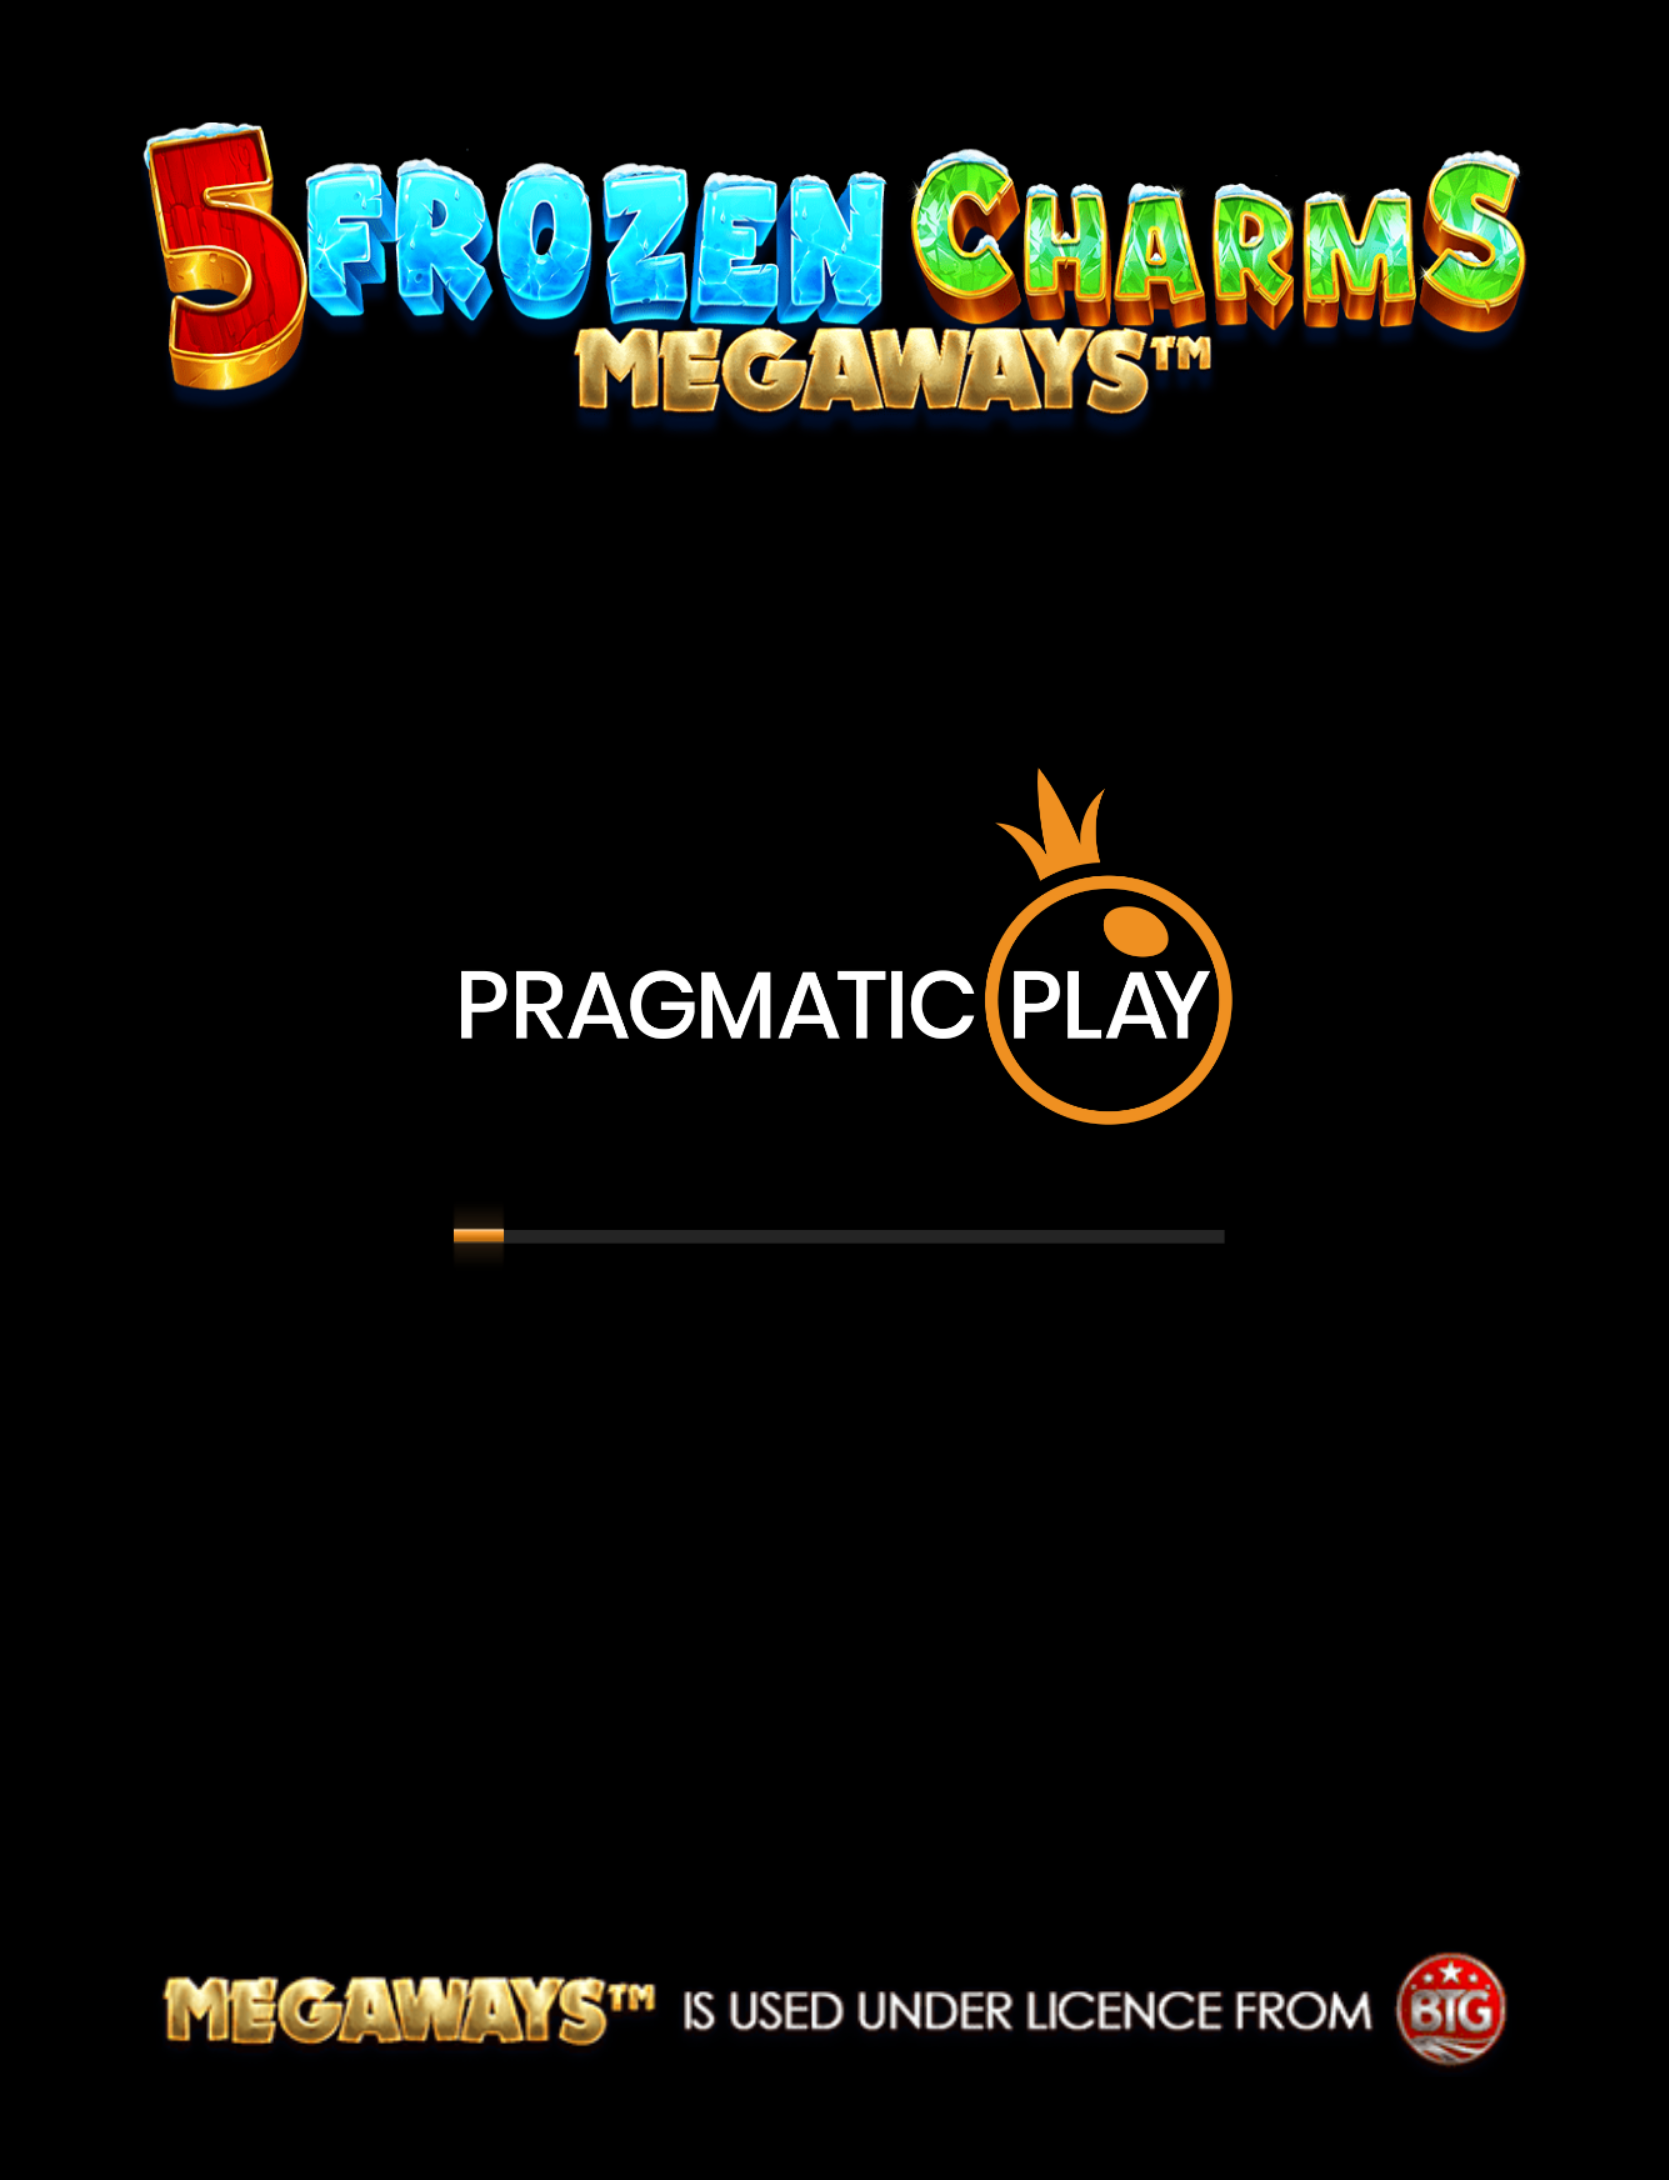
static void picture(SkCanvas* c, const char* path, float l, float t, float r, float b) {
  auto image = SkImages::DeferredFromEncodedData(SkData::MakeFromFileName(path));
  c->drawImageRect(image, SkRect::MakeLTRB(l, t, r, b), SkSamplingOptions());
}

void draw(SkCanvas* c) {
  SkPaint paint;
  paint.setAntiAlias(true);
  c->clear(0xff000000);
  picture(c, "img_01.png", 141, 122, 1529, 2077);
}
